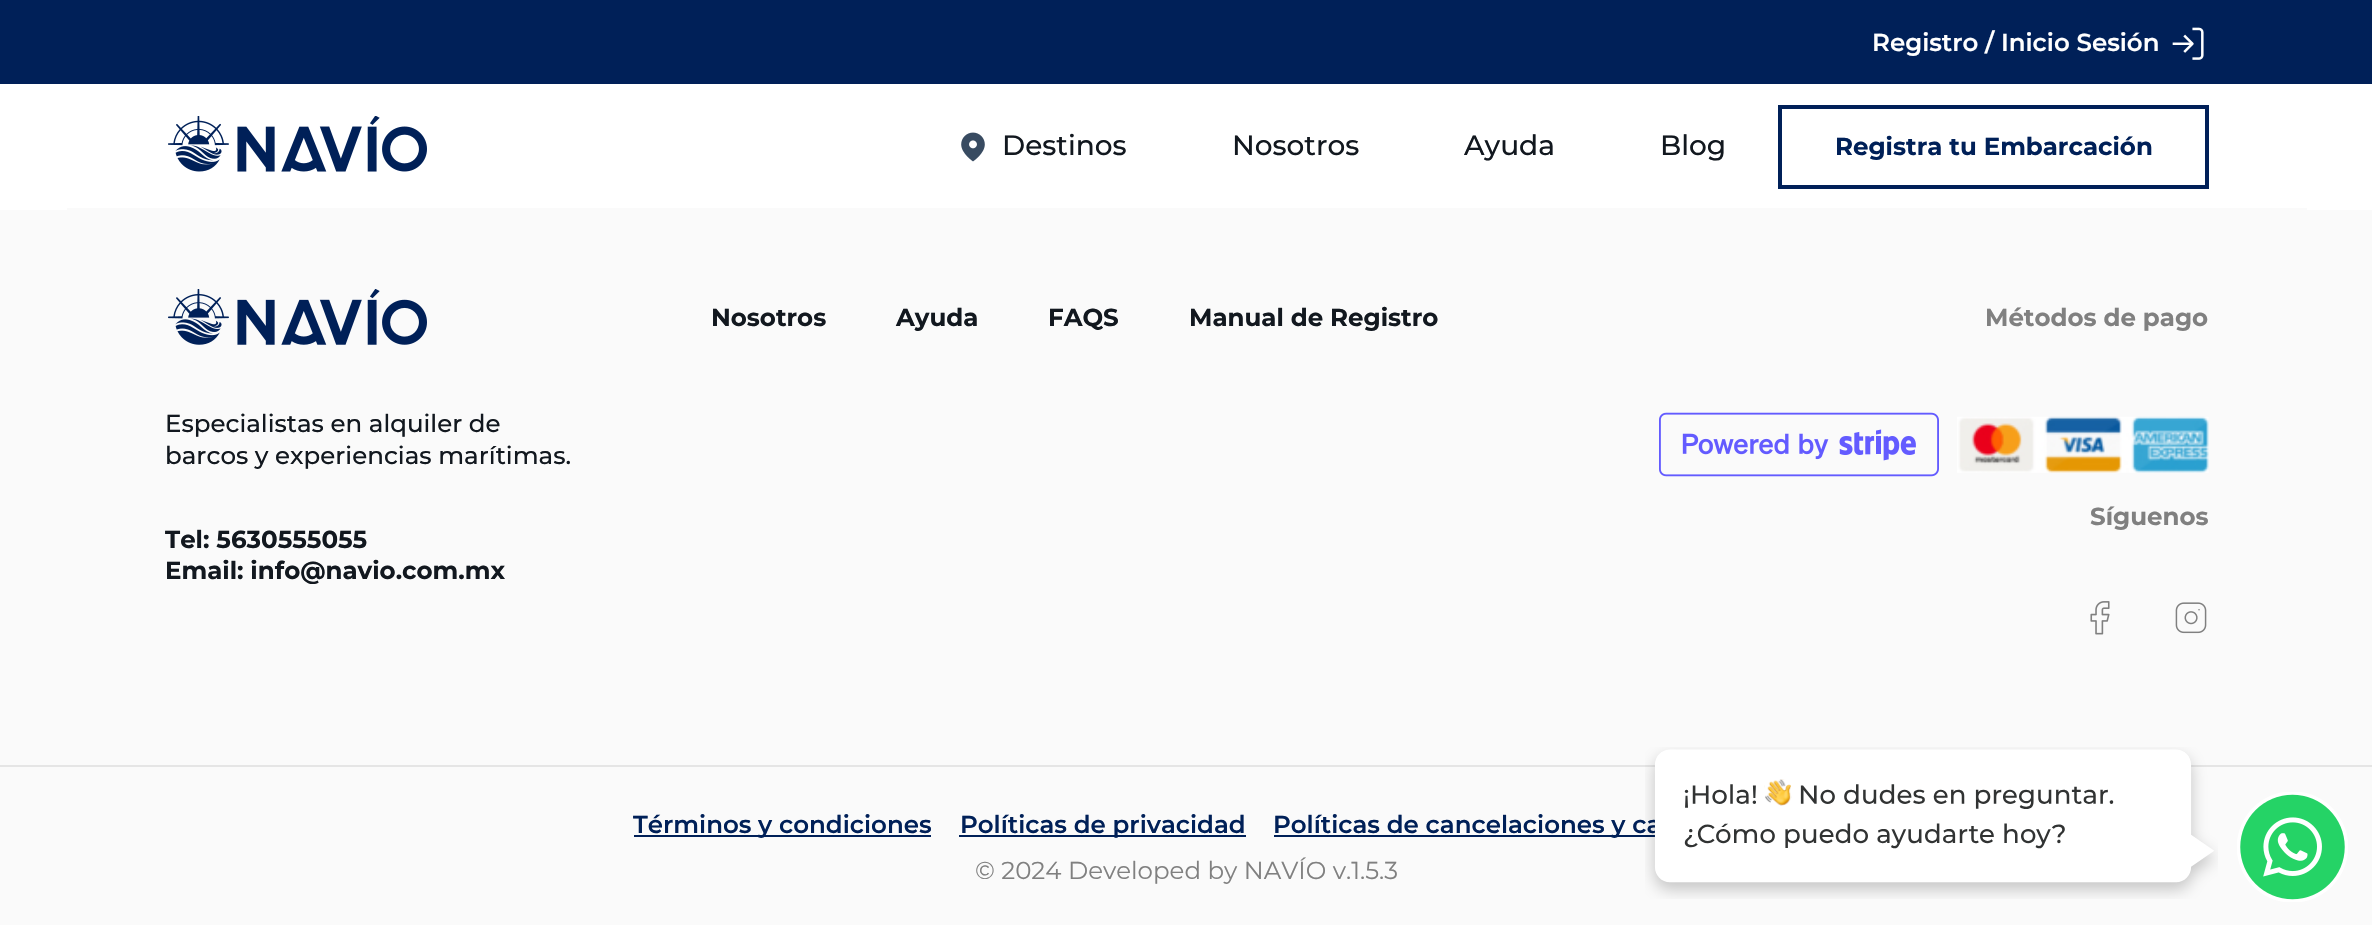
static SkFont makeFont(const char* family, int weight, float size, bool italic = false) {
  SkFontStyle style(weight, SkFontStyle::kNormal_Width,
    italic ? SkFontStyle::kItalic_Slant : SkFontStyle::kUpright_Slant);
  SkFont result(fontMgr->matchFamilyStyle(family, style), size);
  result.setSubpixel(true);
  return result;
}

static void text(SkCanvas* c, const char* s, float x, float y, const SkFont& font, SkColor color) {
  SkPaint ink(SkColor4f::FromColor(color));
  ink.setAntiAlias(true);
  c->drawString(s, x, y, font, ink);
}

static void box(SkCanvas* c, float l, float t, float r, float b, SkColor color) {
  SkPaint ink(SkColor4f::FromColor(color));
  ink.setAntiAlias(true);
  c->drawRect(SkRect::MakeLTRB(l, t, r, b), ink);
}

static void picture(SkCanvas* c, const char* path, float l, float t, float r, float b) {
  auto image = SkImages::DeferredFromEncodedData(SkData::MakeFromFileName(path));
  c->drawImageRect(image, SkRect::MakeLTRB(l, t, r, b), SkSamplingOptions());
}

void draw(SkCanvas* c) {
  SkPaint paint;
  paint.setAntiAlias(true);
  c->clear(0xfffafafa);
  box(c, 0, 0, 2372, 84, 0xff002058);
  SkFont face1 = makeFont("Montserrat", 600, 24.5f);
  text(c, "Registro / Inicio Sesión", 1872, 51, face1, 0xffffffff);
  picture(c, "img_01.png", 2172, 27, 2204, 60);
  box(c, 0, 84, 2372, 210, 0xffffffff);
  box(c, 67, 208, 2307, 210, 0xfffafafa);
  picture(c, "img_02.png", 168, 116, 427, 172);
  picture(c, "img_03.png", 961, 132, 985, 162);
  SkFont face2 = makeFont("Montserrat", 500, 28);
  text(c, "Destinos", 1002, 155, face2, 0xff12181f);
  text(c, "Nosotros", 1232, 155, face2, 0xff12181f);
  text(c, "Ayuda", 1464, 155, face2, 0xff12181f);
  text(c, "Blog", 1660, 155, face2, 0xff12181f);
  paint.setStyle(SkPaint::kStroke_Style);
  paint.setStrokeWidth(4);
  paint.setColor(0xff002058);
  c->drawRect(SkRect::MakeLTRB(1780, 107, 2207, 187), paint);
  SkFont face3 = makeFont("Montserrat", 700, 24.5f);
  text(c, "Registra tu Embarcación", 1835, 155, face3, 0xff002058);
  picture(c, "img_04.png", 168, 289, 427, 345);
  SkFont face4 = makeFont("Montserrat", 500, 24.5f);
  text(c, "Especialistas en alquiler de", 165, 432, face4, 0xff12181f);
  text(c, "barcos y experiencias marítimas.", 165, 464, face4, 0xff12181f);
  text(c, "Tel: 5630555055", 165, 548, face3, 0xff12181f);
  text(c, "Email: info@navio.com.mx", 165, 579, face3, 0xff12181f);
  text(c, "Nosotros", 711, 326, face3, 0xff12181f);
  text(c, "Ayuda", 896, 326, face3, 0xff12181f);
  text(c, "FAQS", 1048, 326, face3, 0xff12181f);
  text(c, "Manual de Registro", 1189, 326, face3, 0xff12181f);
  text(c, "Métodos de pago", 1985, 326, face3, 0xff808080);
  picture(c, "img_05.png", 1659, 412, 1939, 477);
  picture(c, "img_06.png", 1957, 416, 2209, 473);
  text(c, "Síguenos", 2090, 525, face3, 0xff808080);
  picture(c, "img_07.png", 2090, 601, 2110, 635);
  picture(c, "img_08.png", 2175, 602, 2207, 634);
  box(c, 0, 765, 2372, 767, 0xffe5e5e5);
  box(c, 634, 835, 931, 837, 0xff002058);
  text(c, "Términos y condiciones", 633, 833, face1, 0xff002058);
  box(c, 959, 835, 1246, 837, 0xff002058);
  text(c, "Políticas de privacidad", 960, 833, face1, 0xff002058);
  box(c, 1274, 835, 1655, 837, 0xff002058);
  text(c, "Políticas de cancelaciones y ca", 1273, 833, face1, 0xff002058);
  SkFont face5 = makeFont("Montserrat", 400, 24.5f);
  text(c, "© 2024 Developed by NAVÍO v.1.5.3", 975, 879, face5, 0xff808080);
  picture(c, "img_09.png", 1645, 747, 2218, 899);
  picture(c, "img_10.png", 2237, 792, 2348, 902);
}
